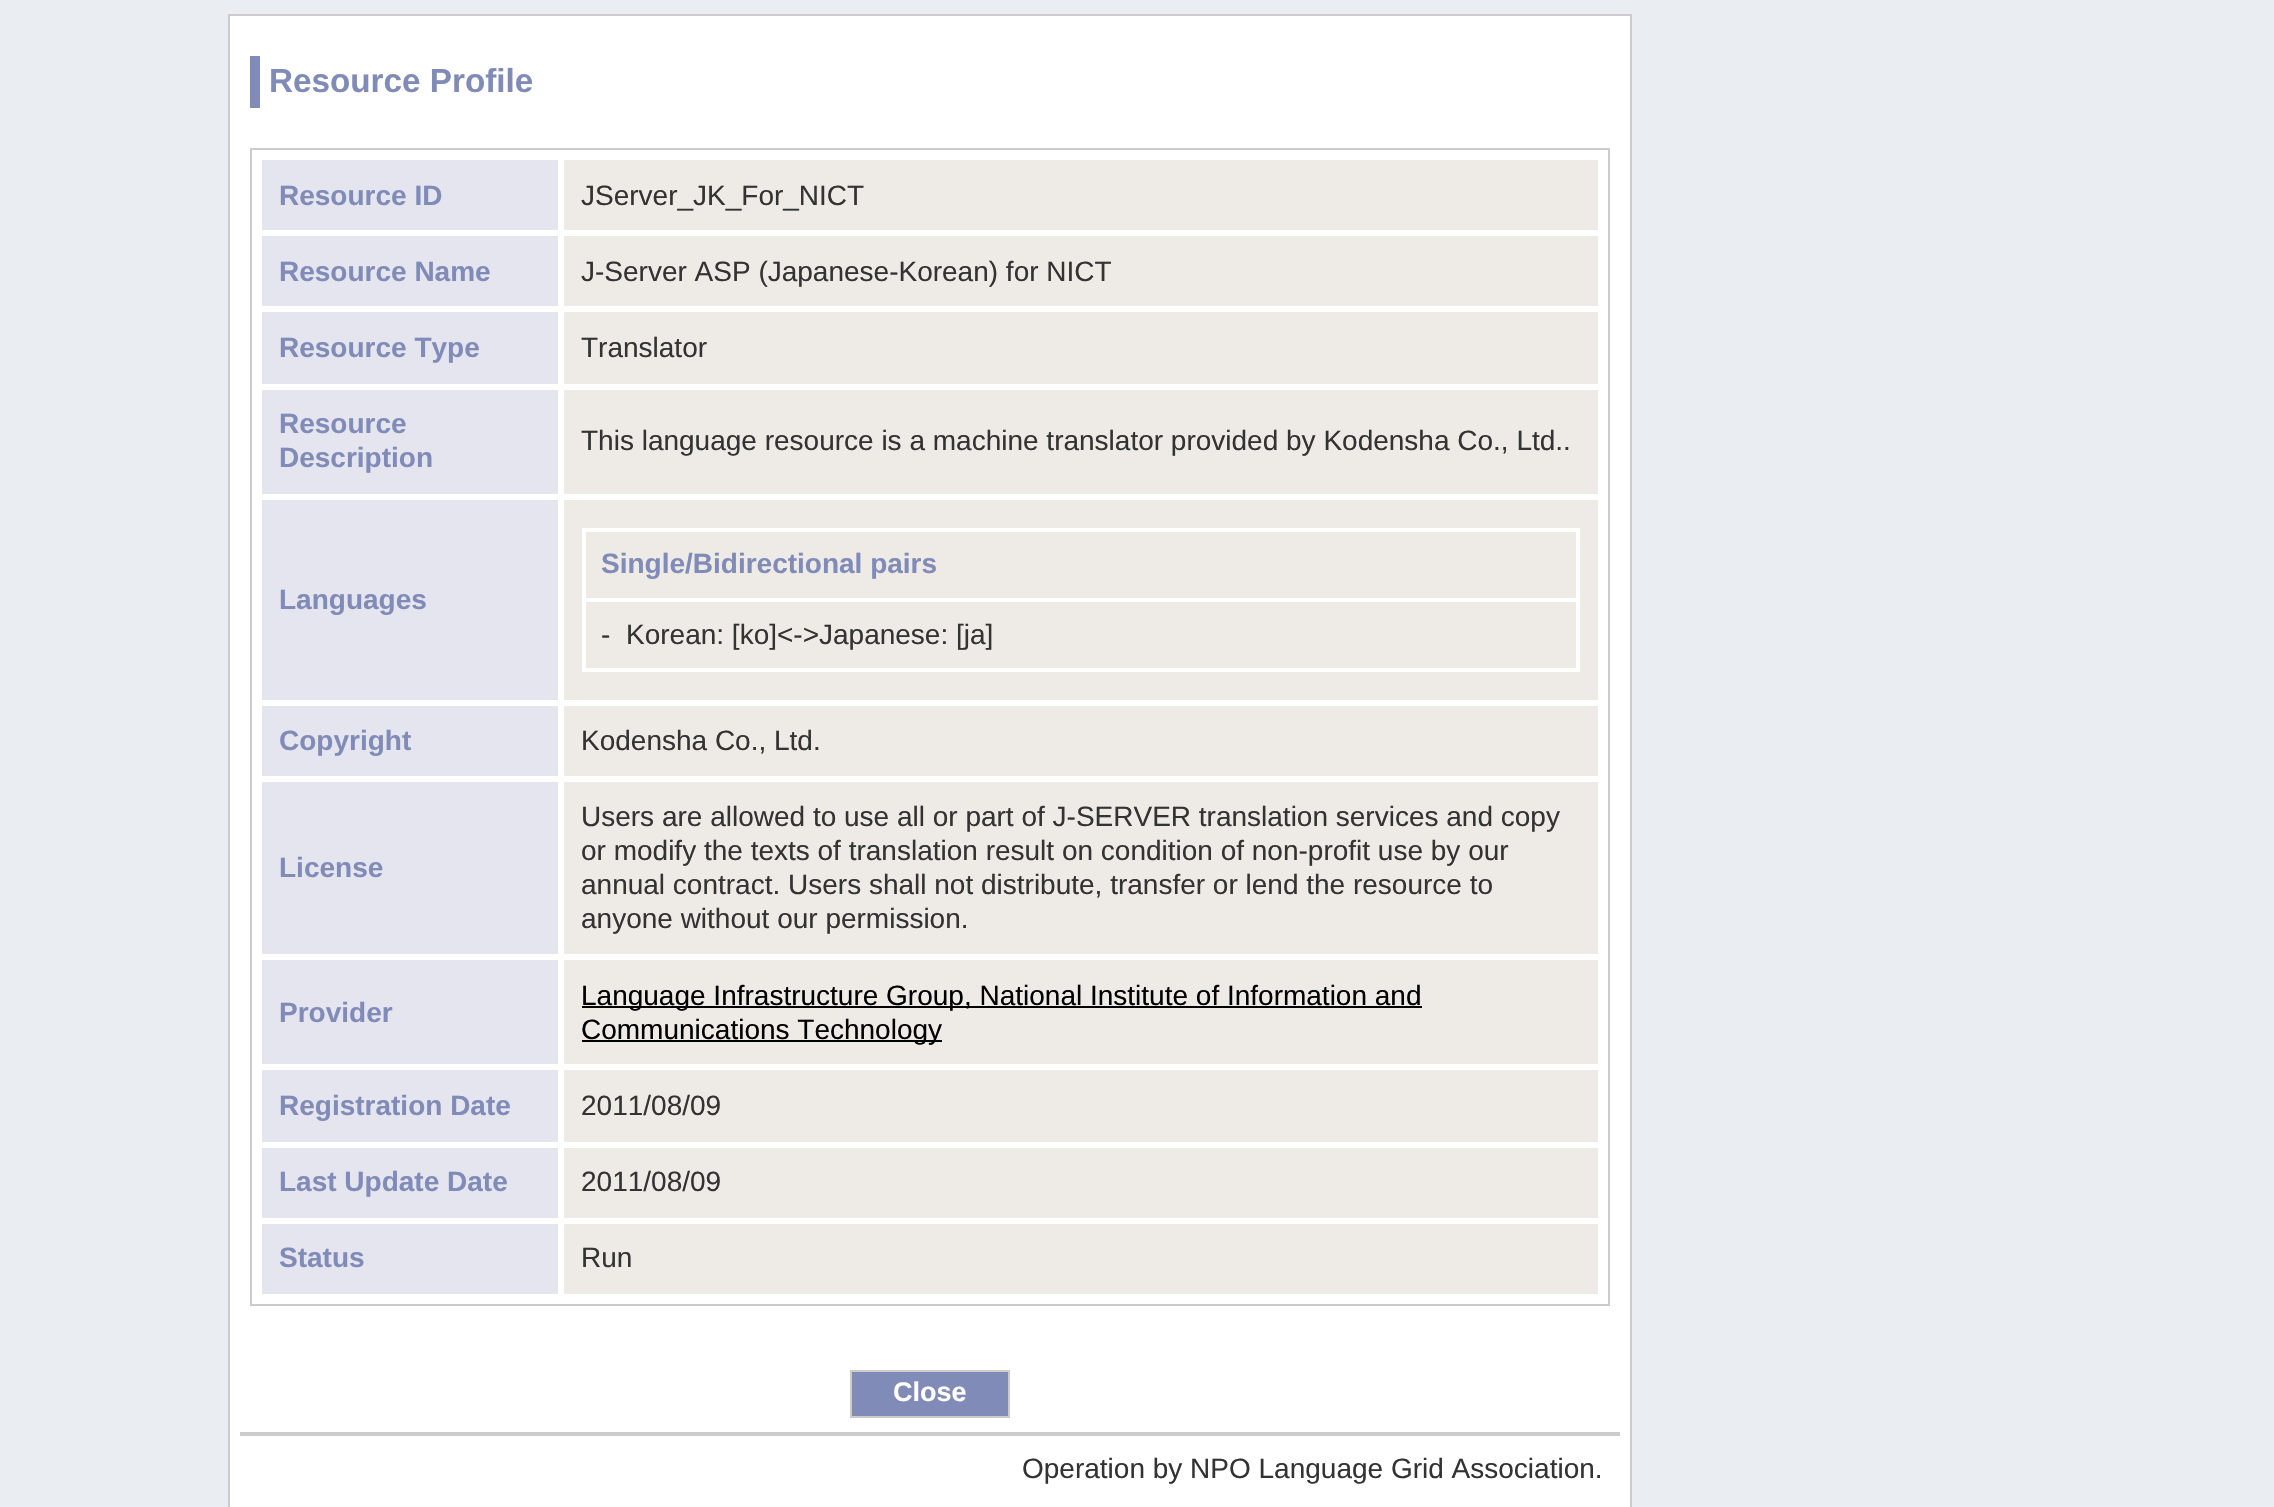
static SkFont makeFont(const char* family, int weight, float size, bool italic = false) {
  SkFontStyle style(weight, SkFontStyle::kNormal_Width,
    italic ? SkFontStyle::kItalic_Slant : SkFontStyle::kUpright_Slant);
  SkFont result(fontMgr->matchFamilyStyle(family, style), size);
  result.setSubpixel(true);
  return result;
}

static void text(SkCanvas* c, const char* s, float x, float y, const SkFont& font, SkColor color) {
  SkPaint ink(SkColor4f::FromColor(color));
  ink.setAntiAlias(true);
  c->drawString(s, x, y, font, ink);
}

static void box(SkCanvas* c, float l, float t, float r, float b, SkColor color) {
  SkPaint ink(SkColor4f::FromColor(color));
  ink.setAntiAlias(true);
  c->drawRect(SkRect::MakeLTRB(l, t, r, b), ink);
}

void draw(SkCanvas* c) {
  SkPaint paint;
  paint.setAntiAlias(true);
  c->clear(0xffeaedf2);
  paint.setColor(0xffffffff);
  c->drawRect(SkRect::MakeLTRB(229, 15, 1631, 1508), paint);
  paint.setStyle(SkPaint::kStroke_Style);
  paint.setStrokeWidth(2);
  paint.setColor(0xffcccccc);
  c->drawRect(SkRect::MakeLTRB(229, 15, 1631, 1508), paint);
  box(c, 250, 56, 260, 108, 0xff808bb8);
  SkFont face1 = makeFont("Liberation Sans", 700, 33.25f);
  text(c, "Resource Profile", 269, 92, face1, 0xff808bb8);
  c->drawRect(SkRect::MakeLTRB(251, 149, 1609, 1305), paint);
  box(c, 262, 160, 558, 230, 0xffe5e5ef);
  SkFont face2 = makeFont("Liberation Sans", 700, 28);
  text(c, "Resource ID", 279, 205, face2, 0xff808bb8);
  box(c, 564, 160, 1598, 230, 0xffeeebe6);
  SkFont face3 = makeFont("Liberation Sans", 400, 28);
  text(c, "JServer_JK_For_NICT", 581, 205, face3, 0xff333333);
  box(c, 262, 236, 558, 306, 0xffe5e5ef);
  text(c, "Resource Name", 279, 281, face2, 0xff808bb8);
  box(c, 564, 236, 1598, 306, 0xffeeebe6);
  text(c, "J-Server ASP (Japanese-Korean) for NICT", 581, 281, face3, 0xff333333);
  box(c, 262, 312, 558, 384, 0xffe5e5ef);
  text(c, "Resource Type", 279, 357, face2, 0xff808bb8);
  box(c, 564, 312, 1598, 384, 0xffeeebe6);
  text(c, "Translator", 581, 357, face3, 0xff333333);
  box(c, 262, 390, 558, 494, 0xffe5e5ef);
  text(c, "Resource", 279, 433, face2, 0xff808bb8);
  text(c, "Description", 279, 467, face2, 0xff808bb8);
  box(c, 564, 390, 1598, 494, 0xffeeebe6);
  text(c, "This language resource is a machine translator provided by Kodensha Co., Ltd..", 581, 450, face3, 0xff333333);
  box(c, 262, 500, 558, 700, 0xffe5e5ef);
  text(c, "Languages", 279, 609, face2, 0xff808bb8);
  box(c, 564, 500, 1598, 700, 0xffeeebe6);
  box(c, 582, 528, 1580, 532, 0xffffffff);
  box(c, 582, 598, 1580, 602, 0xffffffff);
  box(c, 1576, 598, 1580, 672, 0xffffffff);
  box(c, 1576, 528, 1580, 602, 0xffffffff);
  box(c, 582, 668, 1580, 672, 0xffffffff);
  box(c, 582, 598, 586, 672, 0xffffffff);
  box(c, 582, 528, 586, 602, 0xffffffff);
  text(c, "Single/Bidirectional pairs", 601, 573, face2, 0xff808bb8);
  text(c, "-", 601, 644, face3, 0xff333333);
  text(c, "Korean: [ko]<->Japanese: [ja]", 626, 644, face3, 0xff333333);
  box(c, 262, 706, 558, 776, 0xffe5e5ef);
  text(c, "Copyright", 279, 750, face2, 0xff808bb8);
  box(c, 564, 706, 1598, 776, 0xffeeebe6);
  text(c, "Kodensha Co., Ltd.", 581, 750, face3, 0xff333333);
  box(c, 262, 782, 558, 954, 0xffe5e5ef);
  text(c, "License", 279, 877, face2, 0xff808bb8);
  box(c, 564, 782, 1598, 954, 0xffeeebe6);
  text(c, "Users are allowed to use all or part of J-SERVER translation services and copy", 581, 826, face3, 0xff333333);
  text(c, "or modify the texts of translation result on condition of non-profit use by our", 581, 860, face3, 0xff333333);
  text(c, "annual contract. Users shall not distribute, transfer or lend the resource to", 581, 894, face3, 0xff333333);
  text(c, "anyone without our permission.", 581, 928, face3, 0xff333333);
  box(c, 262, 960, 558, 1064, 0xffe5e5ef);
  text(c, "Provider", 279, 1022, face2, 0xff808bb8);
  box(c, 564, 960, 1598, 1064, 0xffeeebe6);
  box(c, 582, 1006, 1422, 1008, 0xff000000);
  text(c, "Language Infrastructure Group, National Institute of Information and", 581, 1005, face3, 0xff000000);
  box(c, 582, 1040, 942, 1042, 0xff000000);
  text(c, "Communications Technology", 581, 1039, face3, 0xff000000);
  box(c, 262, 1070, 558, 1142, 0xffe5e5ef);
  text(c, "Registration Date", 279, 1115, face2, 0xff808bb8);
  box(c, 564, 1070, 1598, 1142, 0xffeeebe6);
  text(c, "2011/08/09", 581, 1115, face3, 0xff333333);
  box(c, 262, 1148, 558, 1218, 0xffe5e5ef);
  text(c, "Last Update Date", 279, 1191, face2, 0xff808bb8);
  box(c, 564, 1148, 1598, 1218, 0xffeeebe6);
  text(c, "2011/08/09", 581, 1191, face3, 0xff333333);
  box(c, 262, 1224, 558, 1294, 0xffe5e5ef);
  text(c, "Status", 279, 1267, face2, 0xff808bb8);
  box(c, 564, 1224, 1598, 1294, 0xffeeebe6);
  text(c, "Run", 581, 1267, face3, 0xff333333);
  paint.setStyle(SkPaint::kFill_Style);
  paint.setColor(0xff808bb8);
  c->drawRect(SkRect::MakeLTRB(851, 1371, 1009, 1417), paint);
  paint.setStyle(SkPaint::kStroke_Style);
  paint.setColor(0xffcccccc);
  c->drawRect(SkRect::MakeLTRB(851, 1371, 1009, 1417), paint);
  SkFont face4 = makeFont("Liberation Sans", 700, 27);
  text(c, "Close", 893, 1401, face4, 0xffffffff);
  box(c, 240, 1432, 1620, 1436, 0xffcccccc);
  text(c, "Operation by NPO Language Grid Association.", 1022, 1478, face3, 0xff333333);
}
